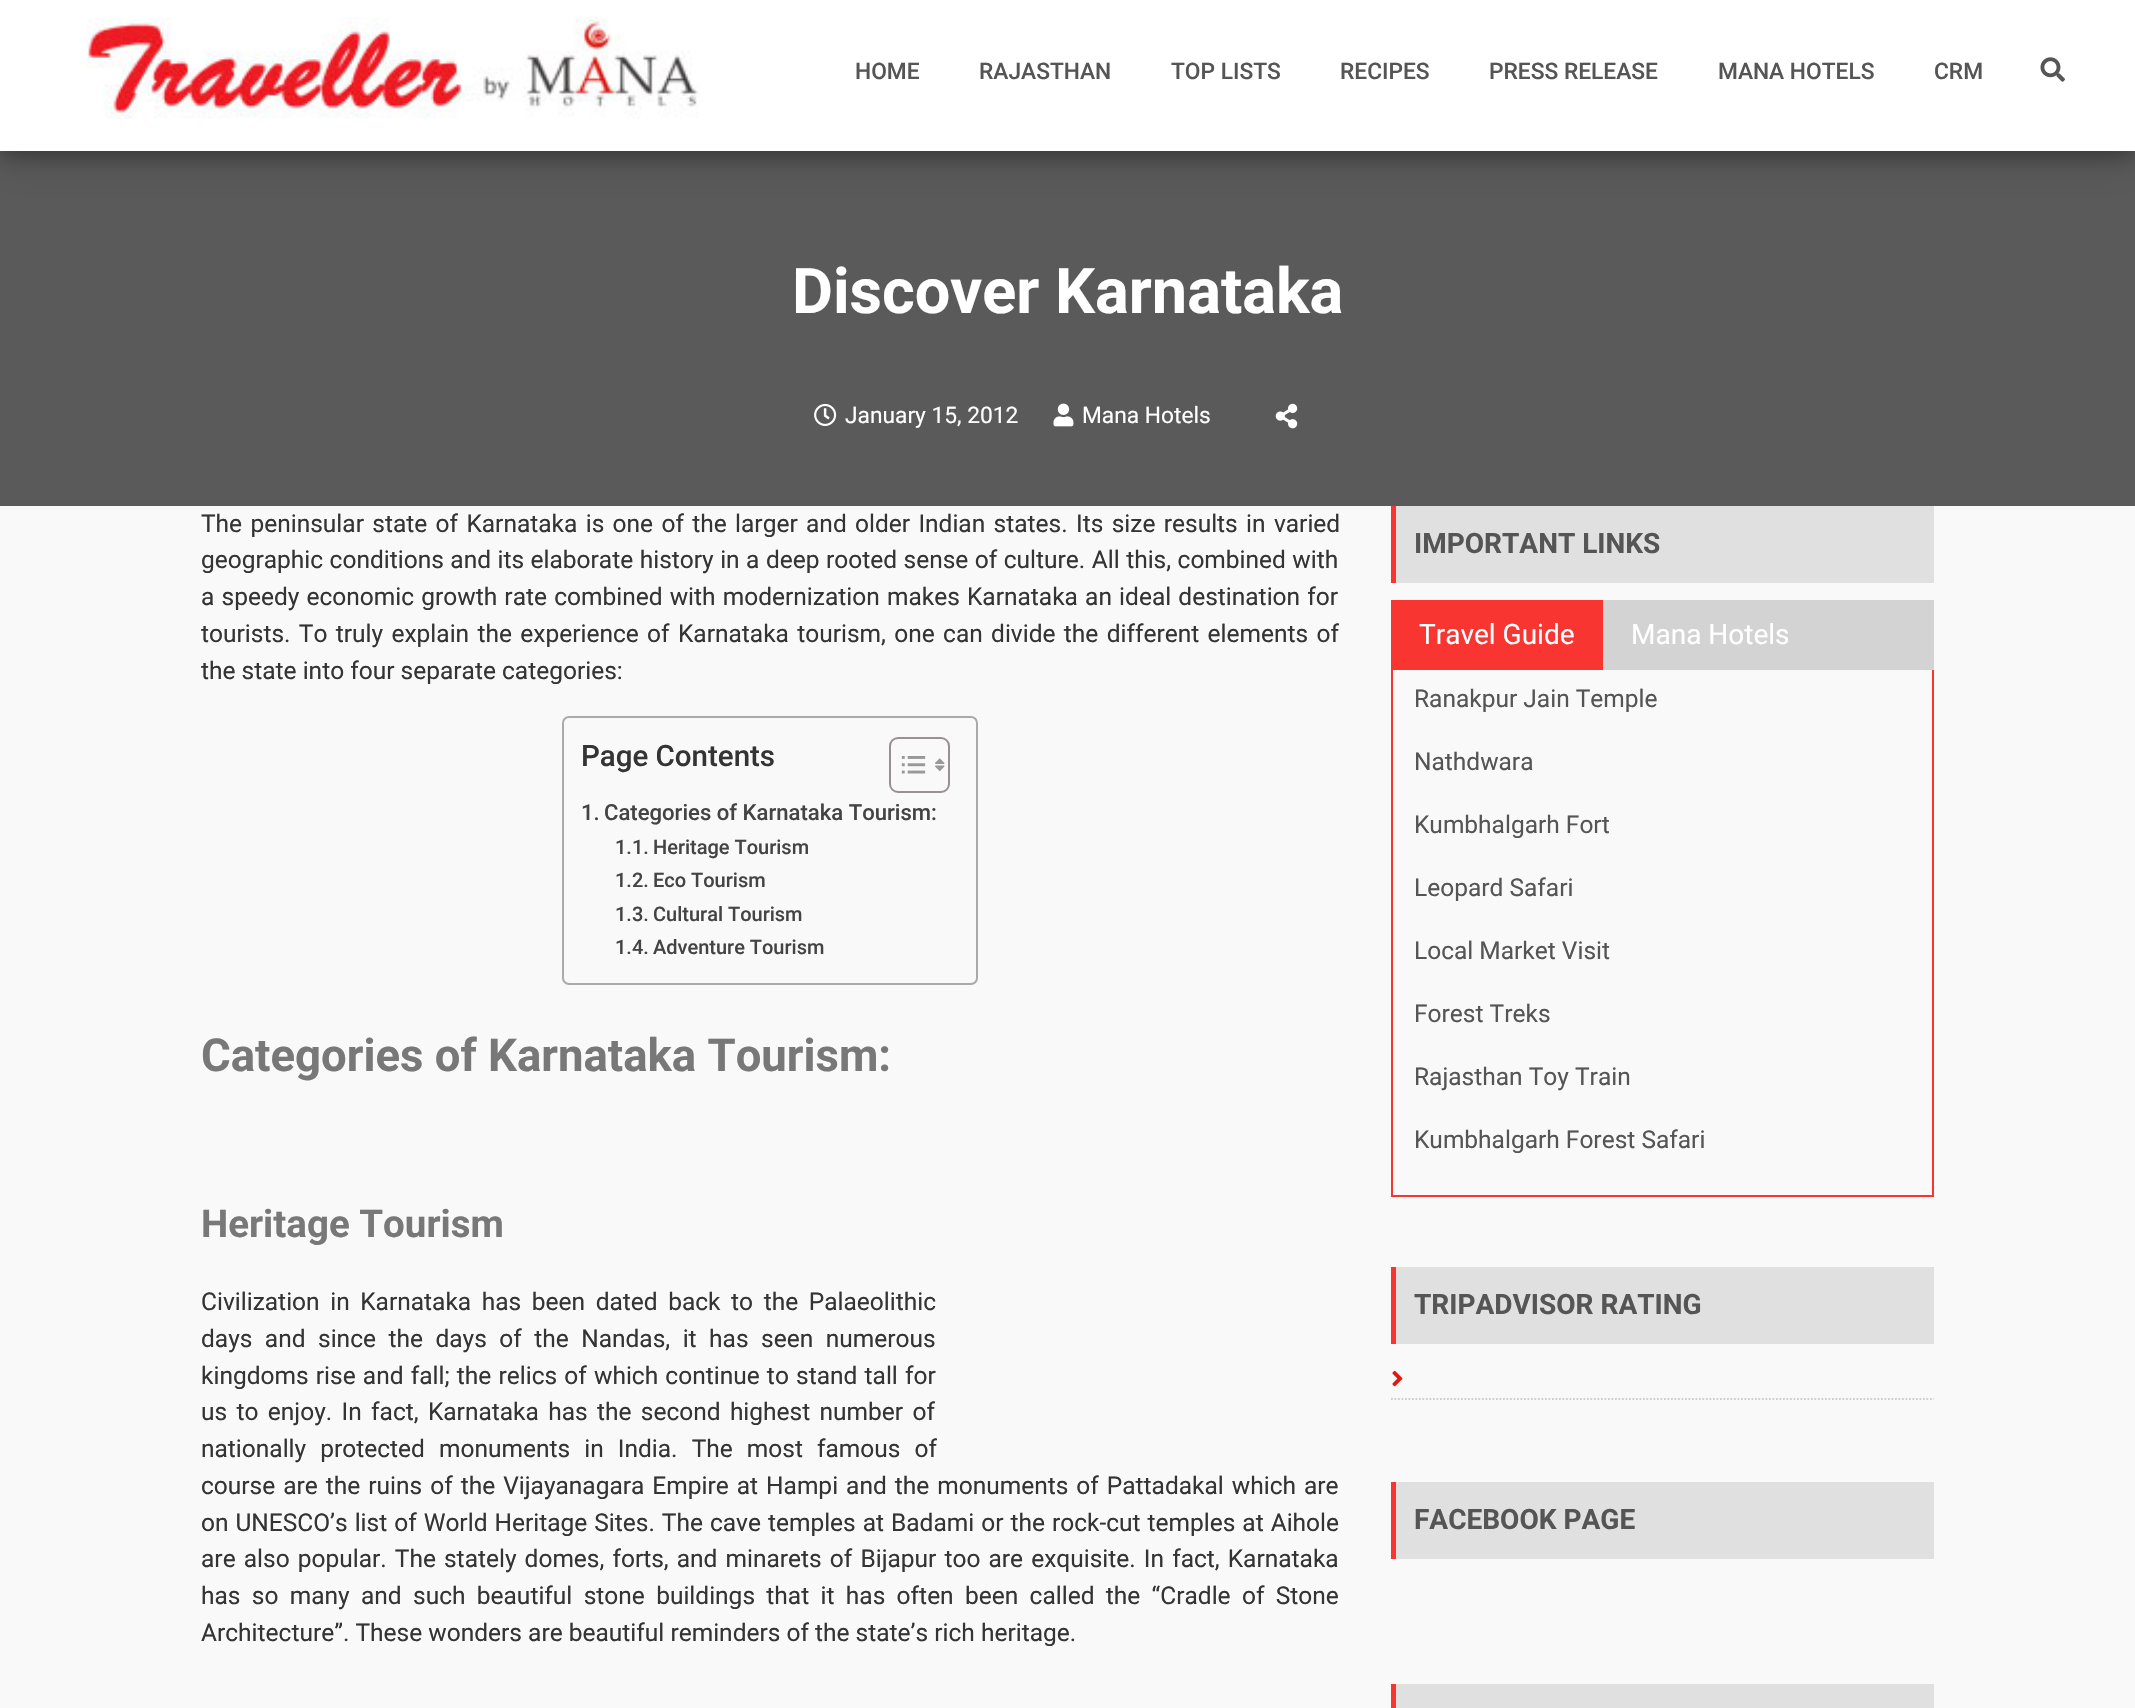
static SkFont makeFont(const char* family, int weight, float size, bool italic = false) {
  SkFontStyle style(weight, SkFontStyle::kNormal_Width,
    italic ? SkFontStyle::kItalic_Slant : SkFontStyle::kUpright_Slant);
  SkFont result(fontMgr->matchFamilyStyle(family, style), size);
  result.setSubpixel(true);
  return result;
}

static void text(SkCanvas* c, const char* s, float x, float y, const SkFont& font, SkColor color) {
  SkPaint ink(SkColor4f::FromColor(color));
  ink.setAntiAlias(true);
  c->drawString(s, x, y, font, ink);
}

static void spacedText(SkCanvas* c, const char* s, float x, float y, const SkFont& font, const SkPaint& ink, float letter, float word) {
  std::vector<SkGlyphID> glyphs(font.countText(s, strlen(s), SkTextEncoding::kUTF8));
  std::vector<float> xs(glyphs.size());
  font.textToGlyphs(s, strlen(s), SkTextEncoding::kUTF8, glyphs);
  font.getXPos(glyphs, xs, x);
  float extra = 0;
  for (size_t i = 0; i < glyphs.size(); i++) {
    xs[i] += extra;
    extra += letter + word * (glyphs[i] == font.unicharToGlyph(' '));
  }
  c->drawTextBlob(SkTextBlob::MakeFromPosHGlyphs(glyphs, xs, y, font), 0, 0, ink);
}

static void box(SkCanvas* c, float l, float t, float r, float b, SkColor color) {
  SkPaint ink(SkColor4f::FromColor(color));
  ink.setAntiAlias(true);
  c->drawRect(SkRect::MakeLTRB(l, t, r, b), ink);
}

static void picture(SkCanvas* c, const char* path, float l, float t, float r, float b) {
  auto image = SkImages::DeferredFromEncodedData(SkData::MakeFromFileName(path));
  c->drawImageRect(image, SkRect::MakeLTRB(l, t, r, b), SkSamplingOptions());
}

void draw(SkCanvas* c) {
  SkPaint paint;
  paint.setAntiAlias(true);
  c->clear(0xfff9f9f9);
  box(c, 0, 151, 2135, 506, 0xff5a5a5a);
  paint.setColor(0x30000000);
  paint.setMaskFilter(SkMaskFilter::MakeBlur(kNormal_SkBlurStyle, 17.5f));
  c->drawRect(SkRect::MakeLTRB(0, 11, 2135, 161), paint);
  paint.setMaskFilter(nullptr);
  paint.setColor(0x33000000);
  paint.setMaskFilter(SkMaskFilter::MakeBlur(kNormal_SkBlurStyle, 7));
  c->drawRect(SkRect::MakeLTRB(0, 7, 2135, 158), paint);
  paint.setMaskFilter(nullptr);
  box(c, 0, 0, 2135, 151, 0xffffffff);
  picture(c, "img_01.png", 86, 17, 700, 119);
  SkFont face1 = makeFont("Roboto", 500, 22.75f);
  text(c, "HOME", 855, 79, face1, 0xff555555);
  text(c, "RAJASTHAN", 979, 79, face1, 0xff555555);
  text(c, "TOP LISTS", 1171, 79, face1, 0xff555555);
  text(c, "RECIPES", 1340, 79, face1, 0xff555555);
  text(c, "PRESS RELEASE", 1489, 79, face1, 0xff555555);
  text(c, "MANA HOTELS", 1718, 79, face1, 0xff555555);
  text(c, "CRM", 1934, 79, face1, 0xff555555);
  picture(c, "img_02.png", 2040, 57, 2065, 82);
  SkFont face2 = makeFont("Roboto", 700, 63);
  text(c, "Discover Karnataka", 792, 313, face2, 0xffffffff);
  picture(c, "img_03.png", 814, 403, 837, 426);
  SkFont face3 = makeFont("Roboto", 400, 22.75f);
  text(c, "January 15, 2012", 845, 423, face3, 0xffffffff);
  picture(c, "img_04.png", 1053, 403, 1074, 427);
  text(c, "Mana Hotels", 1082, 423, face3, 0xffffffff);
  picture(c, "img_05.png", 1275, 403, 1298, 429);
  SkFont face4 = makeFont("Roboto", 400, 24.5f);
  paint.setColor(0xff343434);
  spacedText(c, "The peninsular state of Karnataka is one of the larger and older Indian states. Its size results in varied", 201, 532, face4, paint, 0, 2.25f);
  spacedText(c, "geographic conditions and its elaborate history in a deep rooted sense of culture. All this, combined with", 201, 568, face4, paint, 0, 0.4f);
  spacedText(c, "a speedy economic growth rate combined with modernization makes Karnataka an ideal destination for", 201, 605, face4, paint, 0, 1.1f);
  spacedText(c, "tourists. To truly explain the experience of Karnataka tourism, one can divide the different elements of", 201, 642, face4, paint, 0, 2.25f);
  text(c, "the state into four separate categories:", 201, 679, face4, 0xff343434);
  paint.setStyle(SkPaint::kStroke_Style);
  paint.setStrokeWidth(2);
  paint.setColor(0xffaaaaaa);
  c->drawRoundRect(SkRect::MakeLTRB(563, 717, 977, 984), 6, 6, paint);
  SkFont face5 = makeFont("Roboto", 500, 29.5f);
  text(c, "Page Contents", 581, 766, face5, 0xff343434);
  paint.setColor(0xff999191);
  c->drawRoundRect(SkRect::MakeLTRB(890, 738, 949, 792), 8, 8, paint);
  picture(c, "img_06.png", 901, 756, 926, 774);
  picture(c, "img_07.png", 935, 758, 945, 772);
  SkFont face6 = makeFont("Roboto", 500, 22.1f);
  text(c, "1.", 581, 820, face6, 0xff444444);
  text(c, "Categories of Karnataka Tourism:", 604, 820, face6, 0xff444444);
  SkFont face7 = makeFont("Roboto", 500, 20);
  text(c, "1.1.", 615, 854, face7, 0xff444444);
  text(c, "Heritage Tourism", 653, 854, face7, 0xff444444);
  text(c, "1.2.", 615, 887, face7, 0xff444444);
  text(c, "Eco Tourism", 653, 887, face7, 0xff444444);
  text(c, "1.3.", 615, 921, face7, 0xff444444);
  text(c, "Cultural Tourism", 653, 921, face7, 0xff444444);
  text(c, "1.4.", 615, 954, face7, 0xff444444);
  text(c, "Adventure Tourism", 653, 954, face7, 0xff444444);
  SkFont face8 = makeFont("Roboto", 700, 45.5f);
  text(c, "Categories of Karnataka Tourism:", 201, 1071, face8, 0xff787878);
  SkFont face9 = makeFont("Roboto", 700, 38.5f);
  text(c, "Heritage Tourism", 201, 1237, face9, 0xff787878);
  paint.setStyle(SkPaint::kFill_Style);
  paint.setColor(0xff343434);
  spacedText(c, "Civilization in Karnataka has been dated back to the Palaeolithic", 201, 1310, face4, paint, 0, 4.5f);
  spacedText(c, "days and since the days of the Nandas, it has seen numerous", 201, 1347, face4, paint, 0, 6.4f);
  spacedText(c, "kingdoms rise and fall; the relics of which continue to stand tall for", 201, 1384, face4, paint, 0, 1.1f);
  spacedText(c, "us to enjoy. In fact, Karnataka has the second highest number of", 201, 1420, face4, paint, 0, 3.25f);
  spacedText(c, "nationally protected monuments in India. The most famous of", 201, 1457, face4, paint, 0, 8);
  spacedText(c, "course are the ruins of the Vijayanagara Empire at Hampi and the monuments of Pattadakal which are", 201, 1494, face4, paint, 0, 1.9f);
  spacedText(c, "on UNESCO’s list of World Heritage Sites. The cave temples at Badami or the rock-cut temples at Aihole", 201, 1531, face4, paint, 0, 0.9f);
  spacedText(c, "are also popular. The stately domes, forts, and minarets of Bijapur too are exquisite. In fact, Karnataka", 201, 1567, face4, paint, 0, 2);
  spacedText(c, "has so many and such beautiful stone buildings that it has often been called the “Cradle of Stone", 201, 1604, face4, paint, 0, 5.25f);
  text(c, "Architecture”. These wonders are beautiful reminders of the state’s rich heritage.", 201, 1641, face4, 0xff343434);
  box(c, 1396, 506, 1934, 583, 0xffe0e0e0);
  box(c, 1391, 506, 1396, 583, 0xfff83531);
  SkFont face10 = makeFont("Roboto", 700, 28);
  text(c, "IMPORTANT LINKS", 1414, 553, face10, 0xff555555);
  box(c, 1603, 600, 1934, 670, 0xffd3d3d3);
  box(c, 1391, 600, 1603, 670, 0xfff83531);
  SkFont face11 = makeFont("Roboto", 400, 28);
  text(c, "Travel Guide", 1419, 644, face11, 0xffffffff);
  text(c, "Mana Hotels", 1631, 644, face11, 0xffffffff);
  box(c, 1932, 670, 1934, 1197, 0xfff83531);
  box(c, 1391, 1195, 1934, 1197, 0xfff83531);
  box(c, 1391, 670, 1393, 1197, 0xfff83531);
  text(c, "Ranakpur Jain Temple", 1414, 707, face4, 0xff555555);
  text(c, "Nathdwara", 1414, 770, face4, 0xff555555);
  text(c, "Kumbhalgarh Fort", 1414, 833, face4, 0xff555555);
  text(c, "Leopard Safari", 1414, 896, face4, 0xff555555);
  text(c, "Local Market Visit", 1414, 959, face4, 0xff555555);
  text(c, "Forest Treks", 1414, 1022, face4, 0xff555555);
  text(c, "Rajasthan Toy Train", 1414, 1085, face4, 0xff555555);
  text(c, "Kumbhalgarh Forest Safari", 1414, 1148, face4, 0xff555555);
  box(c, 1396, 1267, 1934, 1344, 0xffe0e0e0);
  box(c, 1391, 1267, 1396, 1344, 0xfff83531);
  text(c, "TRIPADVISOR RATING", 1414, 1314, face10, 0xff555555);
  paint.setStyle(SkPaint::kStroke_Style);
  paint.setStrokeWidth(1.8f);
  paint.setColor(0xffcecece);
  paint.setPathEffect(SkDashPathEffect::Make({{1.75f, 1.75f}}, 0));
  c->drawPath(SkPathBuilder().moveTo(1391, 1399).lineTo(1934, 1399).detach(), paint);
  paint.setPathEffect(nullptr);
  picture(c, "img_08.png", 1392, 1370, 1403, 1387);
  box(c, 1396, 1482, 1934, 1559, 0xffe0e0e0);
  box(c, 1391, 1482, 1396, 1559, 0xfff83531);
  text(c, "FACEBOOK PAGE", 1414, 1529, face10, 0xff555555);
  box(c, 1396, 1684, 1934, 1708, 0xffe0e0e0);
  box(c, 1391, 1684, 1396, 1708, 0xfff83531);
}
